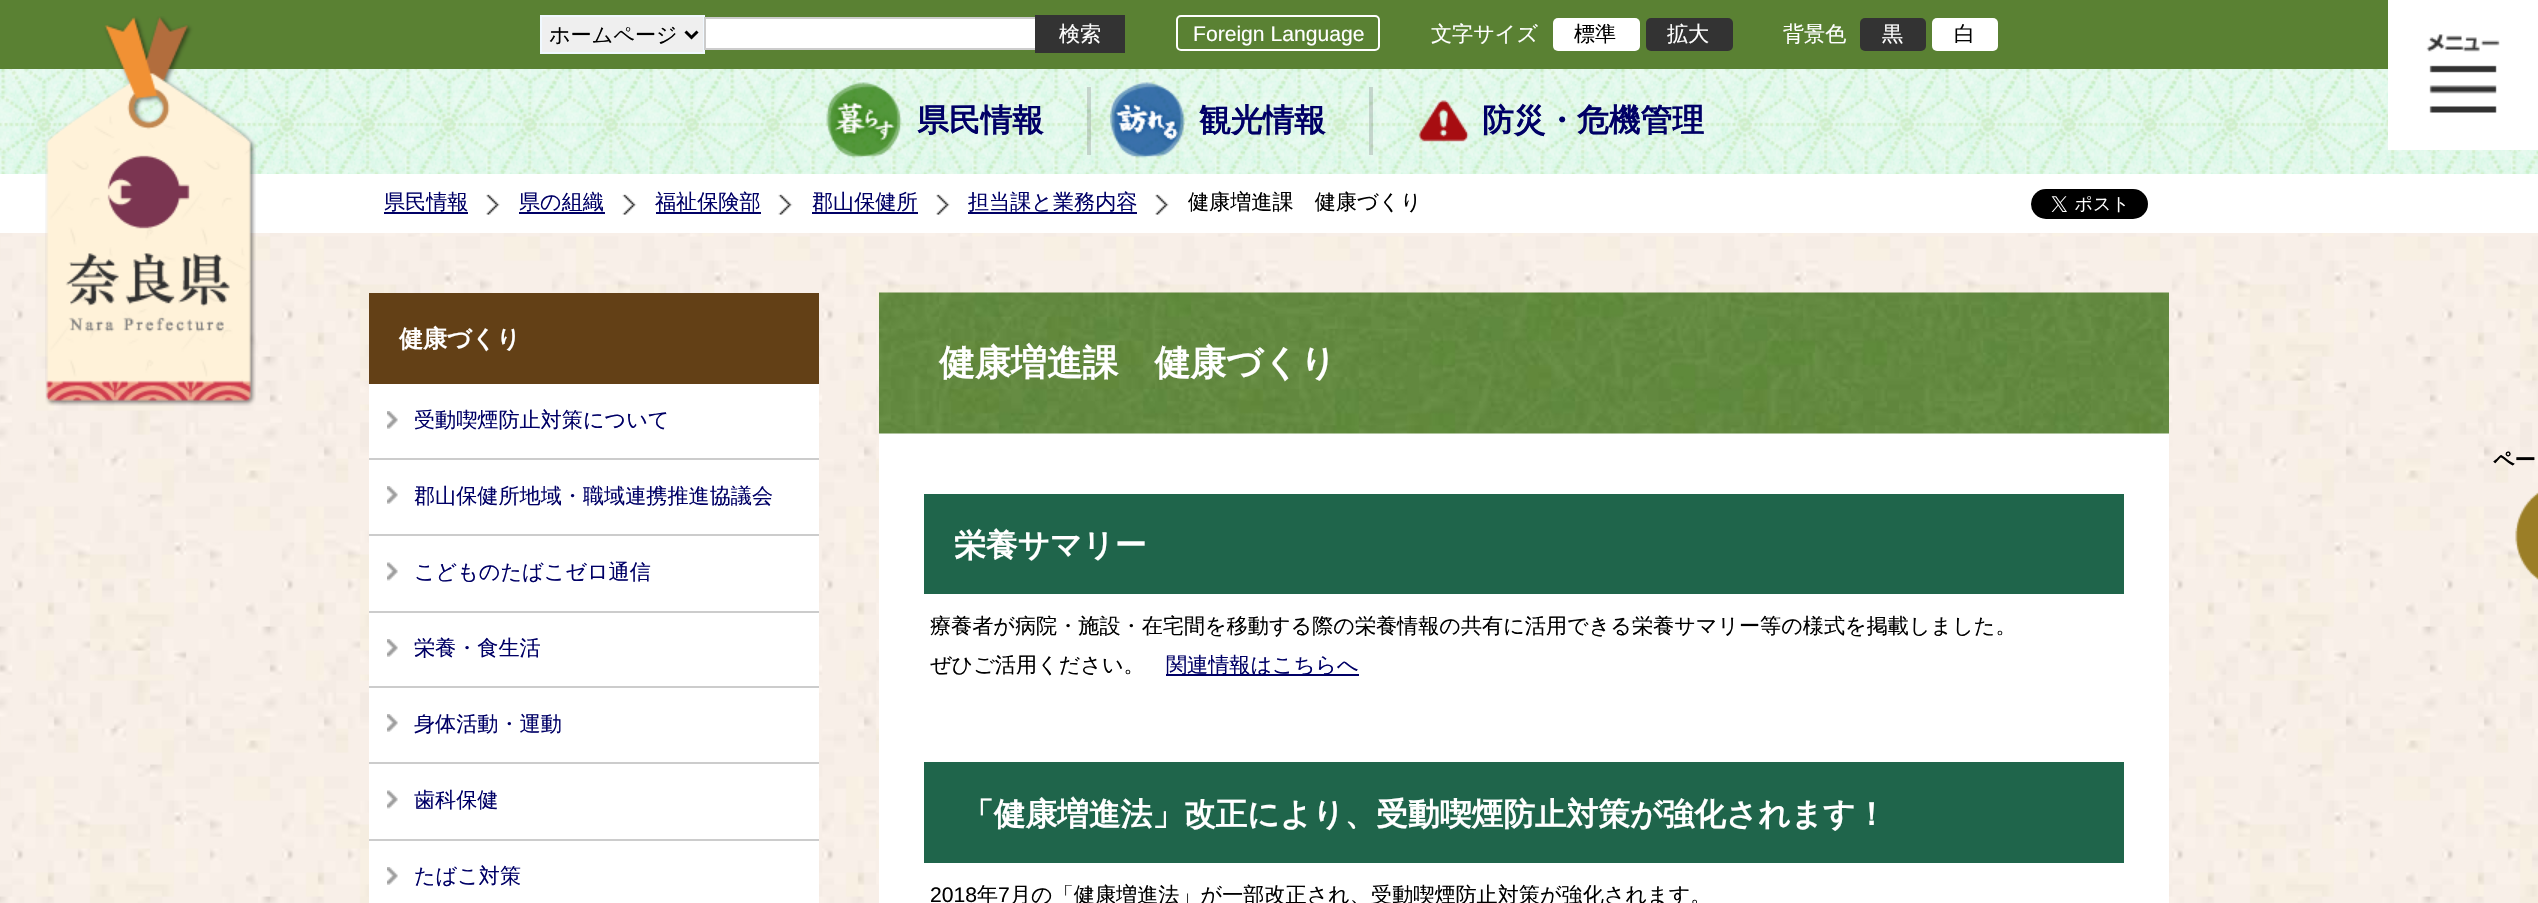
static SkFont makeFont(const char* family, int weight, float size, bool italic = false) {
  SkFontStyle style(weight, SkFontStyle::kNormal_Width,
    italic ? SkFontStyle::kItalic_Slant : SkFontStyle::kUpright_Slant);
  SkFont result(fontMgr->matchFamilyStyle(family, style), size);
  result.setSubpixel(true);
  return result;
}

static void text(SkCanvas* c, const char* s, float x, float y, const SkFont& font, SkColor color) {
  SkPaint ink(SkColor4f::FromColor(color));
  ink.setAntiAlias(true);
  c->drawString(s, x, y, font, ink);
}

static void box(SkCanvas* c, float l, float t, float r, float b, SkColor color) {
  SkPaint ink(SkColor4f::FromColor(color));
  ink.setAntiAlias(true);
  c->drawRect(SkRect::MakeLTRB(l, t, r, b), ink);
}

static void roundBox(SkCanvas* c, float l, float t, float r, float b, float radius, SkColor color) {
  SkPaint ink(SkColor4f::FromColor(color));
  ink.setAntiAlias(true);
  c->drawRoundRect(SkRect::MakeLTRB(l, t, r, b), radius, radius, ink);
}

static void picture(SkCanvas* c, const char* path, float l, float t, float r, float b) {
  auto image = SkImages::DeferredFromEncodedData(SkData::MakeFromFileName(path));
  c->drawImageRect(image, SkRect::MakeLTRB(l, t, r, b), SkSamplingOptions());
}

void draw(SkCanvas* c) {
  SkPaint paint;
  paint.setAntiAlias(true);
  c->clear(0xffffffff);
  picture(c, "img_01.png", 0, 233, 2538, 903);
  box(c, 0, 0, 2388, 69, 0xff5a8133);
  picture(c, "img_03.png", 0, 69, 2538, 174);
  picture(c, "img_02.png", 45, 16, 256, 406);
  paint.setColor(0xffefefef);
  c->drawRect(SkRect::MakeLTRB(541, 16, 704, 53), paint);
  paint.setStyle(SkPaint::kStroke_Style);
  paint.setStrokeWidth(2);
  paint.setColor(0xfff0f8ff);
  c->drawRect(SkRect::MakeLTRB(541, 16, 704, 53), paint);
  paint.setStrokeWidth(3);
  paint.setColor(0xff000000);
  c->drawPath(SkPathBuilder().moveTo(685.5f, 31.5f).lineTo(691.5f, 37.5f).lineTo(697.5f, 31.5f).detach(), paint);
  SkFont face1 = makeFont("WenQuanYi Zen Hei", 500, 21.12f);
  text(c, "ホームページ", 549, 42, face1, 0xff000000);
  paint.setStyle(SkPaint::kFill_Style);
  paint.setColor(0xffffffff);
  c->drawRect(SkRect::MakeLTRB(705, 18, 1036, 49), paint);
  paint.setStyle(SkPaint::kStroke_Style);
  paint.setStrokeWidth(2);
  paint.setColor(0xffcccccc);
  c->drawRect(SkRect::MakeLTRB(705, 18, 1036, 49), paint);
  box(c, 1035, 15, 1125, 53, 0xff333333);
  text(c, "検索", 1059, 41, face1, 0xffffffff);
  paint.setColor(0xffffffff);
  c->drawRoundRect(SkRect::MakeLTRB(1177, 16, 1379, 50), 4, 4, paint);
  SkFont face2 = makeFont("Liberation Sans", 400, 21.12f);
  text(c, "Foreign Language", 1193, 41, face2, 0xffffffff);
  text(c, "文字サイズ", 1431, 41, face1, 0xffffffff);
  roundBox(c, 1553, 18, 1640, 51, 5, 0xffffffff);
  text(c, "標準", 1574, 41, face1, 0xff000000);
  roundBox(c, 1646, 18, 1733, 51, 5, 0xff333333);
  text(c, "拡大", 1667, 41, face1, 0xffffffff);
  text(c, "背景色", 1783, 41, face1, 0xffffffff);
  roundBox(c, 1860, 18, 1926, 51, 5, 0xff333333);
  text(c, "黒", 1882, 41, face1, 0xffffffff);
  roundBox(c, 1932, 18, 1998, 51, 5, 0xffffffff);
  text(c, "白", 1954, 41, face1, 0xff000000);
  picture(c, "img_04.png", 826, 82, 902, 158);
  SkFont face3 = makeFont("WenQuanYi Zen Hei", 700, 31.7f);
  text(c, "県民情報", 917, 131, face3, 0xff000066);
  box(c, 1087, 87, 1091, 155, 0x40686868);
  picture(c, "img_05.png", 1110, 82, 1185, 158);
  text(c, "観光情報", 1199, 131, face3, 0xff000066);
  box(c, 1369, 87, 1373, 155, 0x40686868);
  picture(c, "img_06.png", 1418, 100, 1469, 142);
  text(c, "防災・危機管理", 1482, 131, face3, 0xff000066);
  picture(c, "img_07.png", 2388, 0, 2538, 150);
  text(c, "県民情報", 384, 209, face1, 0xff000066);
  box(c, 384, 212, 468, 214, 0xff000066);
  picture(c, "img_08.png", 486, 194, 500, 215);
  text(c, "県の組織", 519, 209, face1, 0xff000066);
  box(c, 519, 212, 605, 214, 0xff000066);
  picture(c, "img_09.png", 622, 194, 637, 215);
  text(c, "福祉保険部", 655, 209, face1, 0xff000066);
  box(c, 656, 212, 761, 214, 0xff000066);
  picture(c, "img_10.png", 778, 194, 793, 215);
  text(c, "郡山保健所", 812, 209, face1, 0xff000066);
  box(c, 812, 212, 918, 214, 0xff000066);
  picture(c, "img_11.png", 936, 194, 950, 215);
  text(c, "担当課と業務内容", 968, 209, face1, 0xff000066);
  box(c, 968, 212, 1137, 214, 0xff000066);
  picture(c, "img_08.png", 1155, 194, 1169, 215);
  text(c, "健康増進課　健康づくり", 1188, 209, face1, 0xff000000);
  picture(c, "img_12.png", 2031, 189, 2148, 219);
  box(c, 369, 384, 819, 903, 0xffffffff);
  box(c, 369, 293, 819, 384, 0xff634016);
  SkFont face4 = makeFont("WenQuanYi Zen Hei", 700, 24);
  text(c, "健康づくり", 399, 347, face4, 0xffffffff);
  box(c, 369, 458, 819, 460, 0xffcccccc);
  picture(c, "img_13.png", 387, 411, 398, 429);
  text(c, "受動喫煙防止対策について", 414, 427, face1, 0xff000066);
  box(c, 369, 534, 819, 536, 0xffcccccc);
  picture(c, "img_13.png", 387, 486, 398, 504);
  text(c, "郡山保健所地域・職域連携推進協議会", 414, 503, face1, 0xff000066);
  box(c, 369, 611, 819, 613, 0xffcccccc);
  picture(c, "img_14.png", 387, 562, 398, 581);
  text(c, "こどものたばこゼロ通信", 414, 579, face1, 0xff000066);
  box(c, 369, 686, 819, 688, 0xffcccccc);
  picture(c, "img_13.png", 387, 639, 398, 657);
  text(c, "栄養・食生活", 414, 655, face1, 0xff000066);
  box(c, 369, 762, 819, 764, 0xffcccccc);
  picture(c, "img_13.png", 387, 714, 398, 732);
  text(c, "身体活動・運動", 414, 731, face1, 0xff000066);
  box(c, 369, 839, 819, 841, 0xffcccccc);
  picture(c, "img_14.png", 387, 790, 398, 809);
  text(c, "歯科保健", 414, 807, face1, 0xff000066);
  picture(c, "img_13.png", 387, 867, 398, 885);
  text(c, "たばこ対策", 414, 883, face1, 0xff000066);
  box(c, 879, 433, 2169, 903, 0xffffffff);
  picture(c, "img_15.png", 879, 292, 2169, 434);
  SkFont face5 = makeFont("WenQuanYi Zen Hei", 700, 35.9f);
  text(c, "健康増進課　健康づくり", 939, 375, face5, 0xffffffff);
  box(c, 924, 494, 2124, 594, 0xff1f654b);
  text(c, "栄養サマリー", 954, 556, face3, 0xffffffff);
  text(c, "療養者が病院・施設・在宅間を移動する際の栄養情報の共有に活用できる栄養サマリー等の様式を掲載しました。", 930, 633, face1, 0xff000000);
  text(c, "ぜひご活用ください。", 930, 672, face1, 0xff000000);
  box(c, 1166, 674, 1359, 676, 0xff000066);
  text(c, "関連情報はこちらへ", 1166, 672, face1, 0xff000066);
  box(c, 924, 762, 2124, 863, 0xff1f654b);
  text(c, "「健康増進法」改正により、受動喫煙防止対策が強化されます！", 962, 825, face3, 0xffffffff);
  text(c, "2018", 930, 902, face2, 0xff000000);
  text(c, "年", 977, 902, face1, 0xff000000);
  text(c, "7", 998, 902, face2, 0xff000000);
  text(c, "月の「健康増進法」が一部改正され、受動喫煙防止対策が強化されます。", 1010, 902, face1, 0xff000000);
  picture(c, "img_16.png", 2515, 492, 2538, 580);
  SkFont face6 = makeFont("WenQuanYi Zen Hei", 700, 21.12f);
  text(c, "ペー", 2493, 467, face6, 0xff000000);
}
